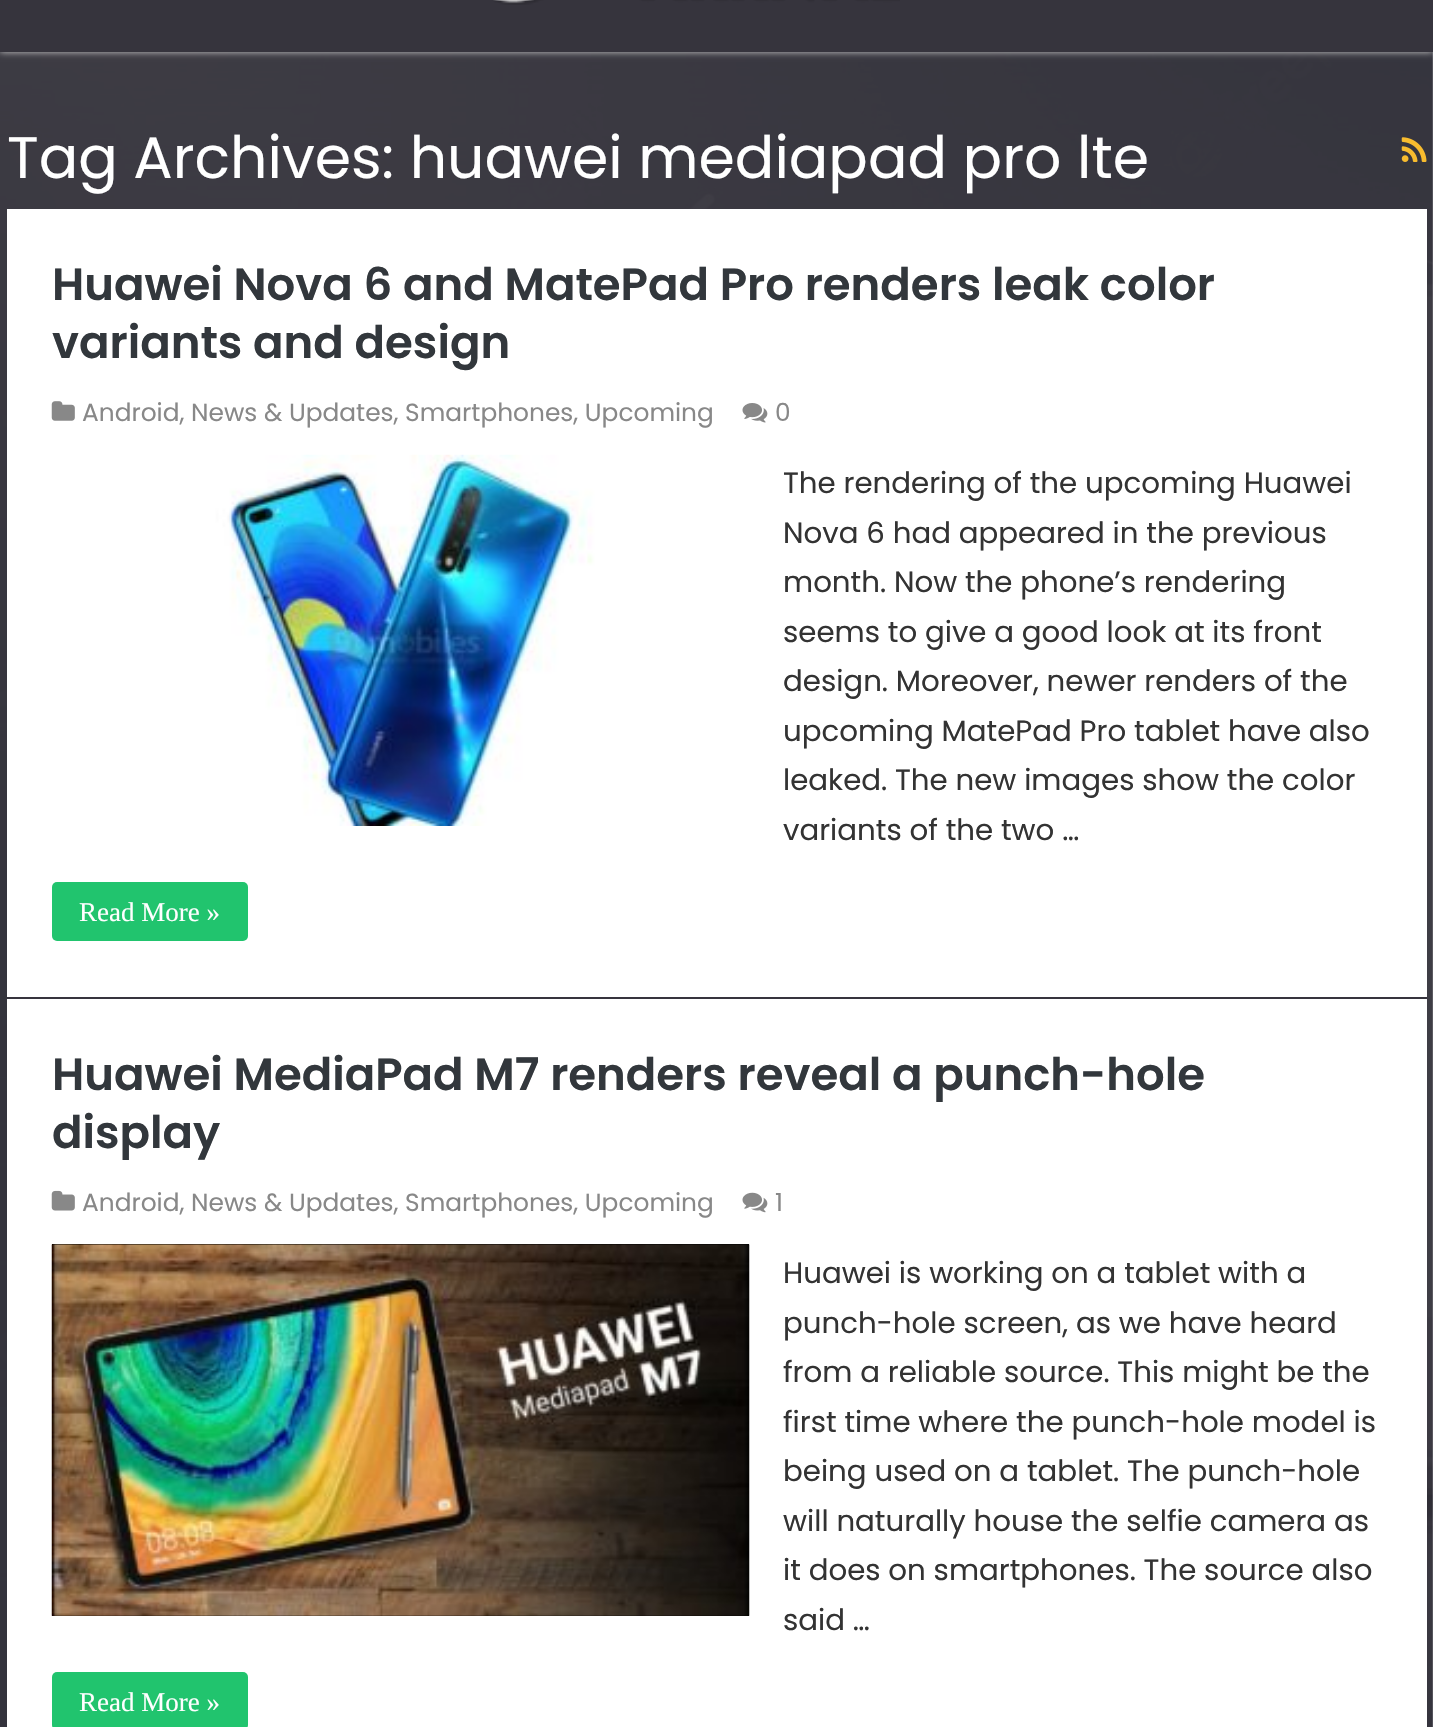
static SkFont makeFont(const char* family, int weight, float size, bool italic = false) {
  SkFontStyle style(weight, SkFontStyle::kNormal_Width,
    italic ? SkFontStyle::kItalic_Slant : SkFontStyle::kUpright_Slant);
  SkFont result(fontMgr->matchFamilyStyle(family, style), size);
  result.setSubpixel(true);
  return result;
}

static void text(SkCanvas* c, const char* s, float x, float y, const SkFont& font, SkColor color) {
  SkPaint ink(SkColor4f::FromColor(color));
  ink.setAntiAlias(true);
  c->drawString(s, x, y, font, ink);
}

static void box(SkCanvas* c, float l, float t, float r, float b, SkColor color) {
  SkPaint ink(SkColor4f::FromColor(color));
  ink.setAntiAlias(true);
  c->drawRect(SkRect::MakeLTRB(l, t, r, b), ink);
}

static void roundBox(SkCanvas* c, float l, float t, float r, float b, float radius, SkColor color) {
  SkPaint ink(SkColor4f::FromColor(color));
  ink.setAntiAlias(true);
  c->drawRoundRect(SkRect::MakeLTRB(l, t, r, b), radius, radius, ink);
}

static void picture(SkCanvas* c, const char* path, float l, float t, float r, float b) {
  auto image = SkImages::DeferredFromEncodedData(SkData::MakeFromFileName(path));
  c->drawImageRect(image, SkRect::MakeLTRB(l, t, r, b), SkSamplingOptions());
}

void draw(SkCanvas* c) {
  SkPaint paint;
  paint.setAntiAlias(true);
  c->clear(0xffffffff);
  picture(c, "img_01.png", 1432, 52, 1433, 1727);
  picture(c, "img_02.png", 0, 52, 1433, 1727);
  paint.setColor(0xffcacaca);
  paint.setMaskFilter(SkMaskFilter::MakeBlur(kNormal_SkBlurStyle, 3.5f));
  c->drawRect(SkRect::MakeLTRB(0, -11, 1433, 52), paint);
  paint.setMaskFilter(nullptr);
  box(c, 0, 0, 1433, 52, 0xff36343d);
  picture(c, "img_03.png", 493, 0, 900, 5);
  SkFont face1 = makeFont("Poppins", 400, 58.5f);
  text(c, "Tag Archives: huawei mediapad pro lte", 7, 178, face1, 0xffffffff);
  picture(c, "img_04.png", 1401, 137, 1427, 162);
  box(c, 7, 209, 1427, 1727, 0xffffffff);
  box(c, 7, 997, 1427, 999, 0xff36343d);
  SkFont face2 = makeFont("Poppins", 600, 45);
  text(c, "Huawei Nova 6 and MatePad Pro renders leak color", 52, 300, face2, 0xff32373c);
  text(c, "variants and design", 52, 358, face2, 0xff32373c);
  picture(c, "img_05.png", 51, 401, 75, 421);
  SkFont face3 = makeFont("Poppins", 400, 24.85f);
  text(c, "Android, News & Updates, Smartphones, Upcoming", 82, 421, face3, 0xff888888);
  picture(c, "img_06.png", 742, 403, 768, 423);
  text(c, "0", 775, 421, face3, 0xff888888);
  picture(c, "img_07.png", 52, 454, 749, 826);
  SkFont face4 = makeFont("Poppins", 400, 29.25f);
  text(c, "The rendering of the upcoming Huawei", 783, 493, face4, 0xff333333);
  text(c, "Nova 6 had appeared in the previous", 783, 543, face4, 0xff333333);
  text(c, "month. Now the phone’s rendering", 783, 592, face4, 0xff333333);
  text(c, "seems to give a good look at its front", 783, 642, face4, 0xff333333);
  text(c, "design. Moreover, newer renders of the", 783, 691, face4, 0xff333333);
  text(c, "upcoming MatePad Pro tablet have also", 783, 741, face4, 0xff333333);
  text(c, "leaked. The new images show the color", 783, 790, face4, 0xff333333);
  text(c, "variants of the two …", 783, 840, face4, 0xff333333);
  roundBox(c, 52, 882, 248, 941, 5, 0xff21c46e);
  SkFont face5 = makeFont("Liberation Serif", 400, 27);
  text(c, "Read More »", 79, 921, face5, 0xffffffff);
  text(c, "Huawei MediaPad M7 renders reveal a punch-hole", 52, 1090, face2, 0xff32373c);
  text(c, "display", 52, 1148, face2, 0xff32373c);
  picture(c, "img_08.png", 51, 1190, 75, 1211);
  text(c, "Android, News & Updates, Smartphones, Upcoming", 82, 1211, face3, 0xff888888);
  picture(c, "img_09.png", 742, 1192, 768, 1213);
  text(c, "1", 775, 1211, face3, 0xff888888);
  box(c, 52, 1244, 749, 1616, 0xff000000);
  picture(c, "img_10.png", 51, 1244, 750, 1616);
  text(c, "Huawei is working on a tablet with a", 783, 1283, face4, 0xff333333);
  text(c, "punch-hole screen, as we have heard", 783, 1333, face4, 0xff333333);
  text(c, "from a reliable source. This might be the", 783, 1382, face4, 0xff333333);
  text(c, "first time where the punch-hole model is", 783, 1432, face4, 0xff333333);
  text(c, "being used on a tablet. The punch-hole", 783, 1481, face4, 0xff333333);
  text(c, "will naturally house the selfie camera as", 783, 1531, face4, 0xff333333);
  text(c, "it does on smartphones. The source also", 783, 1580, face4, 0xff333333);
  text(c, "said …", 783, 1630, face4, 0xff333333);
  roundBox(c, 52, 1672, 248, 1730, 5, 0xff21c46e);
  text(c, "Read More »", 79, 1711, face5, 0xffffffff);
}
